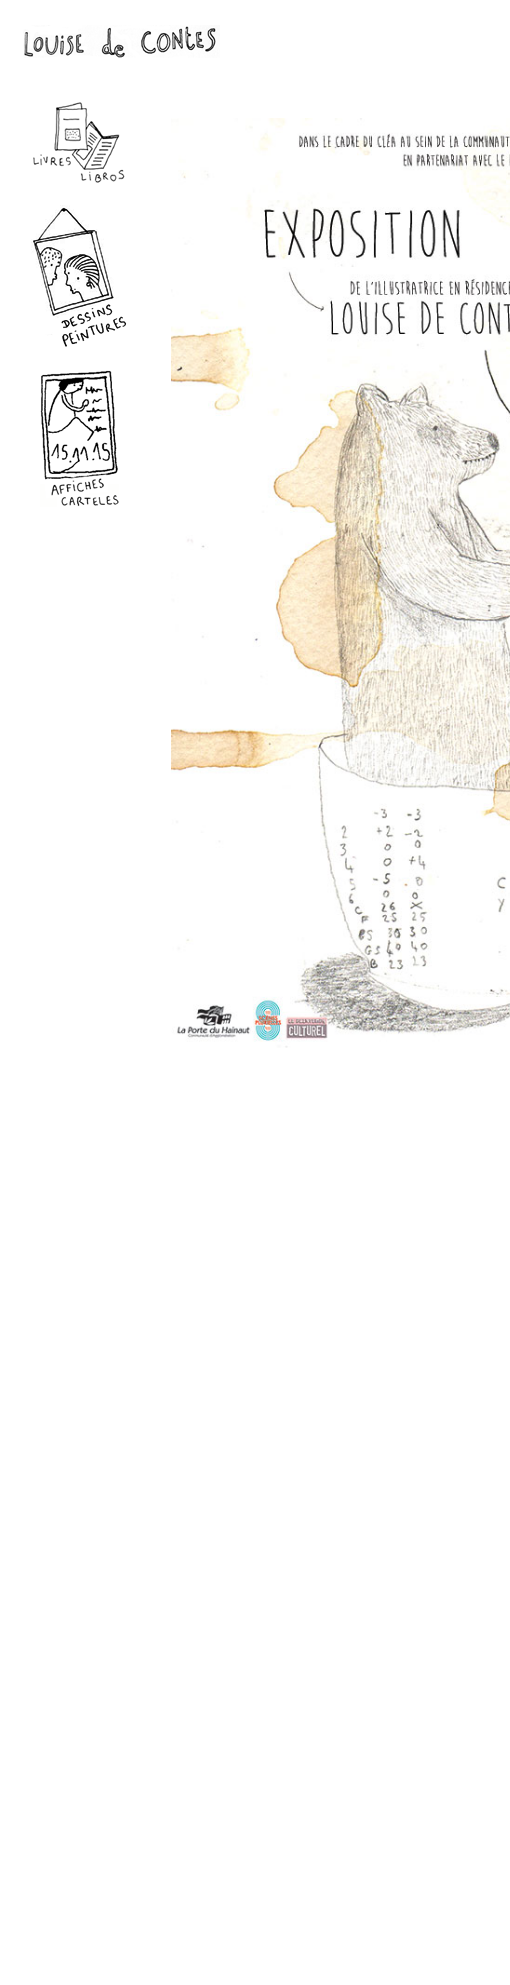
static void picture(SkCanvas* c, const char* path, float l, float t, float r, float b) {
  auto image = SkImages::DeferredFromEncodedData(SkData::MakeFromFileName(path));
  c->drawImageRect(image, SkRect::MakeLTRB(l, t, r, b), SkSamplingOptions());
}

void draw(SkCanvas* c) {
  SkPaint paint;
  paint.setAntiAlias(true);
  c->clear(0xffffffff);
  picture(c, "img_01.png", 23, 25, 220, 58);
  picture(c, "img_02.png", 33, 102, 125, 183);
  picture(c, "img_03.png", 31, 205, 127, 347);
  picture(c, "img_04.png", 40, 370, 119, 507);
  picture(c, "img_05.png", 171, 118, 510, 1048);
}
